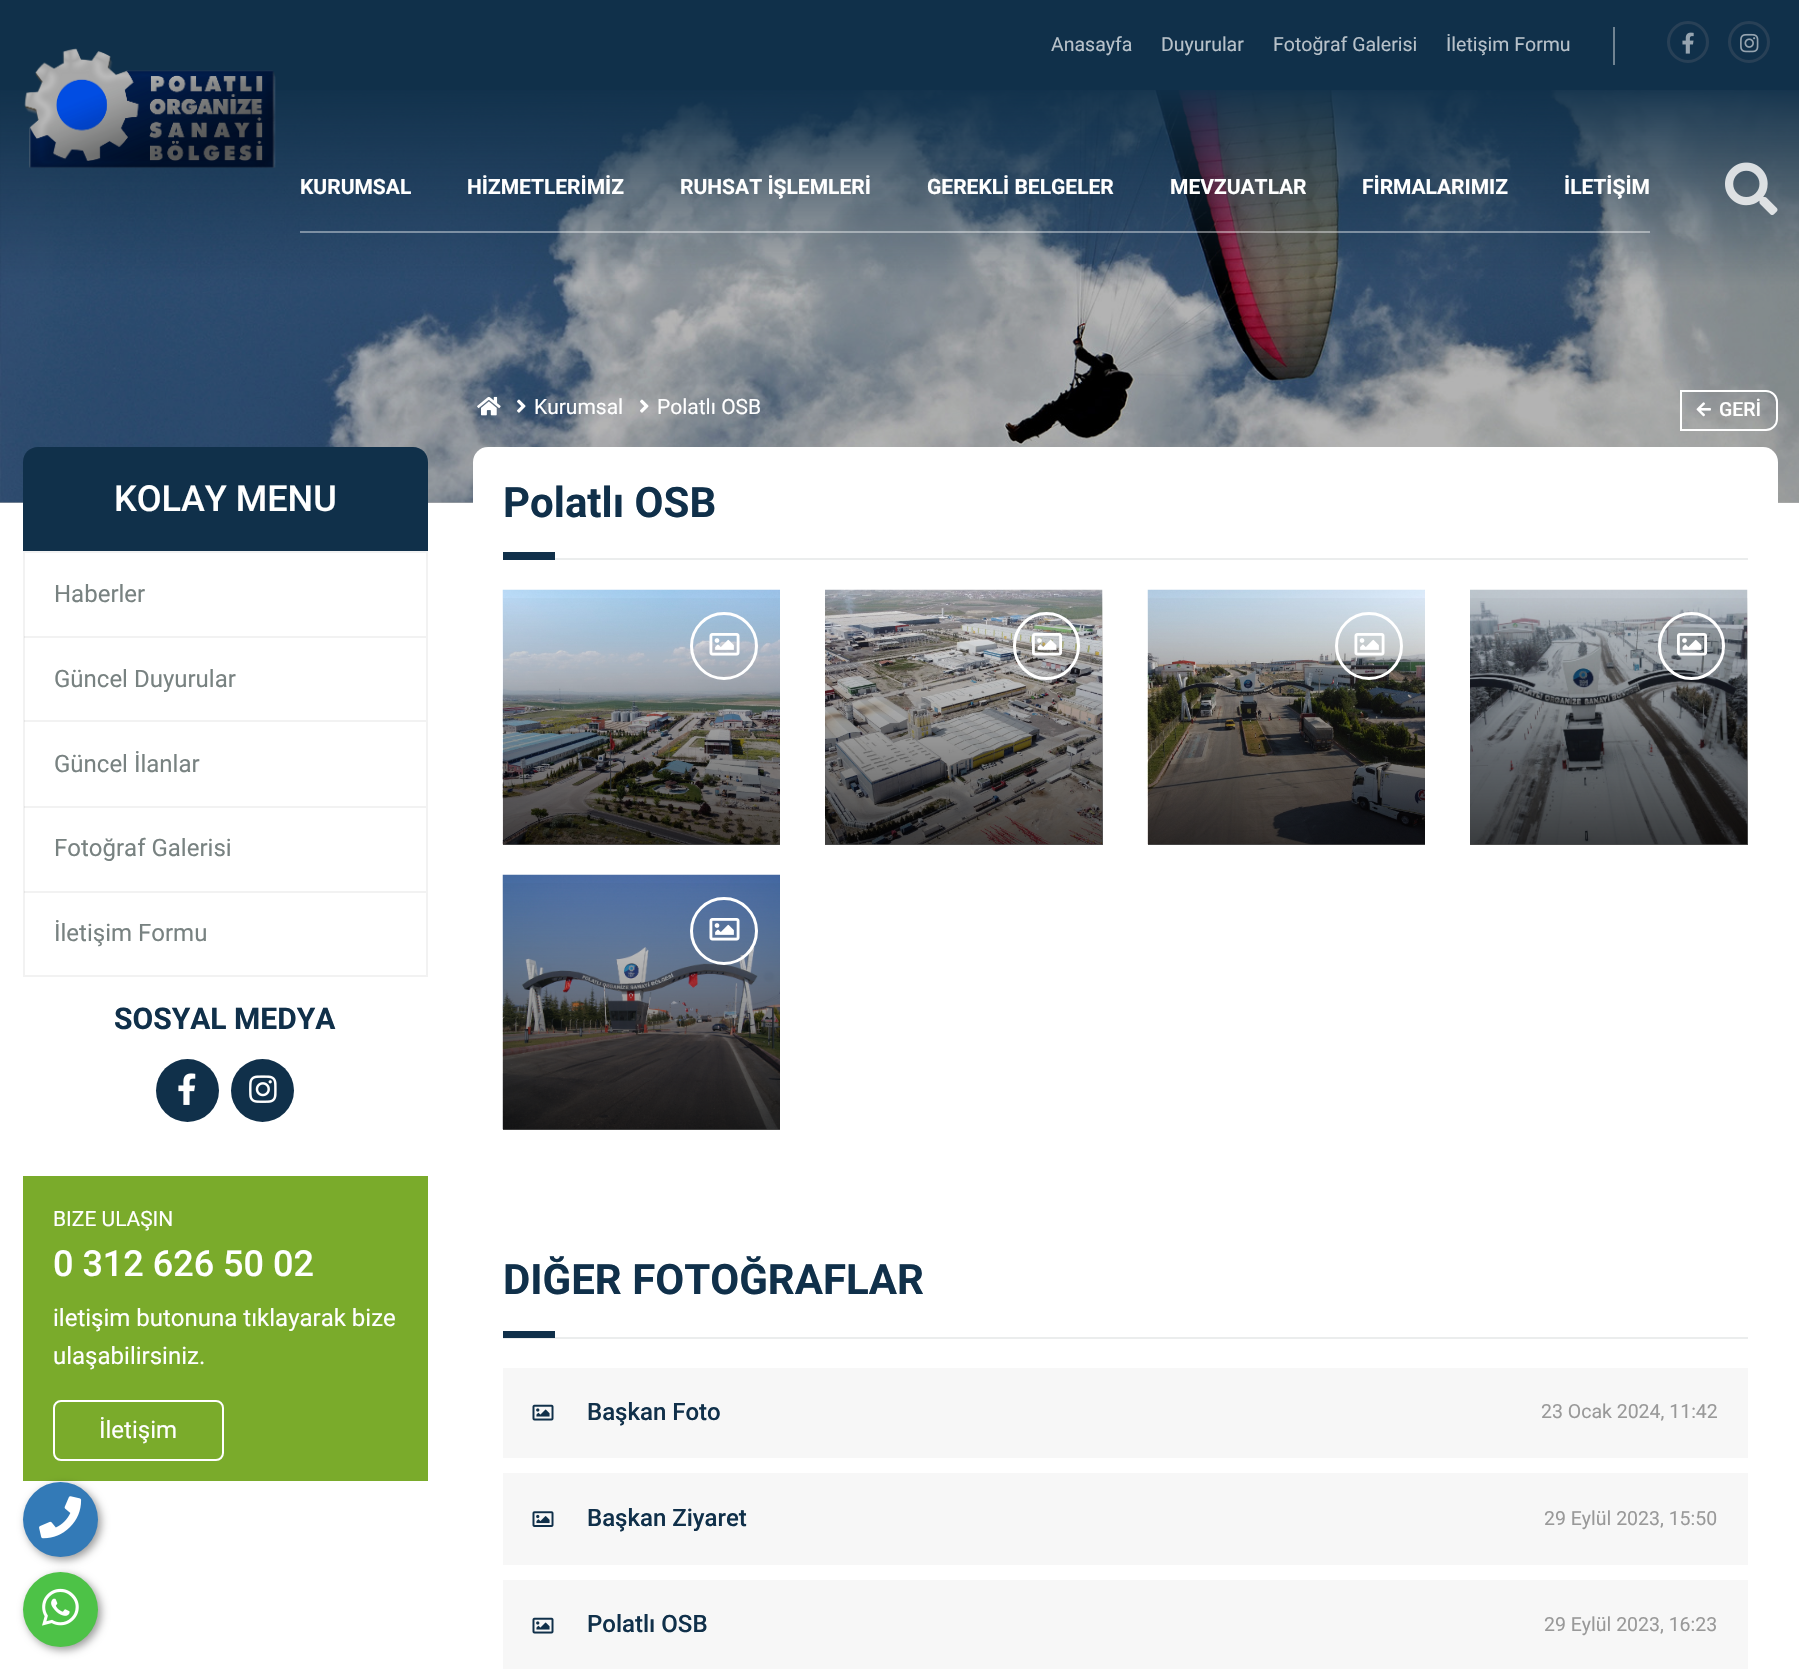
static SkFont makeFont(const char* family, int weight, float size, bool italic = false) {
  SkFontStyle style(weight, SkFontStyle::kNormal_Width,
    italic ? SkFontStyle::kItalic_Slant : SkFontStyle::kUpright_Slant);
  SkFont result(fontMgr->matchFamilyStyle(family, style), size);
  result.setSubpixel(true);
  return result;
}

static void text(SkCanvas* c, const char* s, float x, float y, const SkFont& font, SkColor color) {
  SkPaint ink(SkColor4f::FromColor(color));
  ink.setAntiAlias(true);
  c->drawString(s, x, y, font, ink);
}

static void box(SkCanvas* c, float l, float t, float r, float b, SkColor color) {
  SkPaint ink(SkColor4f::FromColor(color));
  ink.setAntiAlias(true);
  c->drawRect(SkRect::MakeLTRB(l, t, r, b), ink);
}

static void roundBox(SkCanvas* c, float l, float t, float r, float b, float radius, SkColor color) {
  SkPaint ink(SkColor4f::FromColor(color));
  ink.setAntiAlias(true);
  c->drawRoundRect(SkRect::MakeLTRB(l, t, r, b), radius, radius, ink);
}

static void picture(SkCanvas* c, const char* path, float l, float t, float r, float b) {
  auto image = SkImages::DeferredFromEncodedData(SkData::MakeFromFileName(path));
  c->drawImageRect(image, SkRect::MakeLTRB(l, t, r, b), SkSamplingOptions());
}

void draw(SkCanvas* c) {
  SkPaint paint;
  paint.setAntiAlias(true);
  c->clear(0xffffffff);
  box(c, 0, 502, 1799, 503, 0xffb3b3b3);
  box(c, 0, 0, 1799, 90, 0xff10304a);
  SkFont face1 = makeFont("Roboto", 400, 19.5f);
  text(c, "Anasayfa", 1051, 51, face1, 0xffb7c1c9);
  text(c, "Duyurular", 1161, 51, face1, 0xffb7c1c9);
  text(c, "Fotoğraf Galerisi", 1273, 51, face1, 0xffb7c1c9);
  text(c, "İletişim Formu", 1446, 51, face1, 0xffb7c1c9);
  box(c, 1613, 27, 1615, 65, 0xff708392);
  paint.setStyle(SkPaint::kStroke_Style);
  paint.setStrokeWidth(3);
  paint.setColor(0xff284056);
  c->drawCircle(1688, 42, 19.5f, paint);
  picture(c, "img_01.png", 1682, 32, 1694, 54);
  c->drawCircle(1749, 42, 19.5f, paint);
  picture(c, "img_02.png", 1740, 33, 1759, 53);
  picture(c, "img_05.png", 0, 90, 1799, 503);
  picture(c, "img_03.png", 24, 48, 276, 168);
  box(c, 300, 231, 1650, 233, 0x66ffffff);
  SkFont face2 = makeFont("Roboto", 700, 21);
  text(c, "KURUMSAL", 300, 194, face2, 0xffffffff);
  text(c, "HİZMETLERİMİZ", 467, 194, face2, 0xffffffff);
  text(c, "RUHSAT İŞLEMLERİ", 680, 194, face2, 0xffffffff);
  text(c, "GEREKLİ BELGELER", 927, 194, face2, 0xffffffff);
  text(c, "MEVZUATLAR", 1170, 194, face2, 0xffffffff);
  text(c, "FİRMALARIMIZ", 1362, 194, face2, 0xffffffff);
  text(c, "İLETİŞİM", 1564, 194, face2, 0xffffffff);
  picture(c, "img_04.png", 1725, 162, 1778, 215);
  picture(c, "img_06.png", 477, 396, 501, 416);
  picture(c, "img_07.png", 517, 399, 526, 413);
  SkFont face3 = makeFont("Roboto", 400, 21);
  text(c, "Kurumsal", 534, 414, face3, 0xffffffff);
  picture(c, "img_08.png", 640, 399, 649, 413);
  text(c, "Polatlı OSB", 657, 414, face3, 0xffffffff);
  paint.setStrokeWidth(2);
  paint.setColor(0xffffffff);
  c->drawPath(SkPathBuilder().moveTo(1681, 391).lineTo(1766, 391).cubicTo(1772, 391, 1777, 396, 1777, 402).lineTo(1777, 419).cubicTo(1777, 425, 1772, 430, 1766, 430).lineTo(1681, 430).close().detach(), paint);
  picture(c, "img_09.png", 1696, 402, 1711, 417);
  SkFont face4 = makeFont("Roboto", 500, 19.5f);
  text(c, "GERİ", 1719, 416, face4, 0xffffffff);
  paint.setStyle(SkPaint::kFill_Style);
  paint.setColor(0xff10304a);
  c->drawPath(SkPathBuilder().moveTo(38, 447).lineTo(413, 447).cubicTo(421.5f, 447, 428, 453.5f, 428, 462).lineTo(428, 551).lineTo(23, 551).lineTo(23, 462).cubicTo(23, 453.5f, 29.5f, 447, 38, 447).close().detach(), paint);
  SkFont face5 = makeFont("Roboto", 500, 36);
  text(c, "KOLAY MENU", 114, 511, face5, 0xffffffff);
  paint.setStyle(SkPaint::kStroke_Style);
  paint.setColor(0xfff2f2f2);
  c->drawRect(SkRect::MakeLTRB(24, 552, 427, 976), paint);
  box(c, 24, 636, 426, 638, 0x0d000000);
  SkFont face6 = makeFont("Roboto", 400, 24);
  text(c, "Haberler", 54, 602, face6, 0xff788281);
  box(c, 24, 720, 426, 722, 0x0d000000);
  text(c, "Güncel Duyurular", 54, 687, face6, 0xff788281);
  box(c, 24, 806, 426, 808, 0x0d000000);
  text(c, "Güncel İlanlar", 54, 772, face6, 0xff788281);
  box(c, 24, 891, 426, 893, 0x0d000000);
  text(c, "Fotoğraf Galerisi", 54, 856, face6, 0xff788281);
  text(c, "İletişim Formu", 54, 941, face6, 0xff788281);
  SkFont face7 = makeFont("Roboto", 700, 30);
  text(c, "SOSYAL MEDYA", 114, 1029, face7, 0xff10304a);
  paint.setStyle(SkPaint::kFill_Style);
  paint.setColor(0xff10304a);
  c->drawCircle(187.5f, 1090.5f, 31.5f, paint);
  picture(c, "img_10.png", 178, 1073, 196, 1105);
  c->drawCircle(262.5f, 1090.5f, 31.5f, paint);
  picture(c, "img_11.png", 249, 1075, 277, 1103);
  box(c, 23, 1176, 428, 1481, 0xff7aab2b);
  text(c, "BIZE ULAŞIN", 53, 1226, face3, 0xffffffff);
  text(c, "0 312 626 50 02", 53, 1276, face5, 0xffffffff);
  text(c, "iletişim butonuna tıklayarak bize", 53, 1326, face6, 0xffffffff);
  text(c, "ulaşabilirsiniz.", 53, 1364, face6, 0xffffffff);
  paint.setStyle(SkPaint::kStroke_Style);
  paint.setColor(0xffffffff);
  c->drawRoundRect(SkRect::MakeLTRB(54, 1401, 223, 1460), 7, 7, paint);
  text(c, "İletişim", 99, 1438, face6, 0xffffffff);
  roundBox(c, 473, 447, 1778, 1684, 15, 0xffffffff);
  box(c, 555, 558, 1748, 560, 0xffebeded);
  SkFont face8 = makeFont("Roboto", 700, 42);
  text(c, "Polatlı OSB", 503, 517, face8, 0xff10304a);
  box(c, 503, 552, 555, 560, 0xff10304a);
  picture(c, "img_12.png", 502, 589, 780, 845);
  paint.setStyle(SkPaint::kFill_Style);
  {
    const SkColor colors[] = {0x00000000, 0xb3000000};
    const float stops[] = {0, 1};
    const SkPoint ends[] = {{641, 590}, {641, 845}};
    paint.setShader(SkGradientShader::MakeLinear(ends, colors, stops, 2, SkTileMode::kClamp));
    paint.setAlpha(255);
  }
  c->drawRect(SkRect::MakeLTRB(503, 598, 780, 845), paint);
  paint.setStyle(SkPaint::kStroke_Style);
  paint.setStrokeWidth(3);
  paint.setShader(nullptr);
  paint.setColor(0xffffffff);
  c->drawCircle(724, 646, 32.5f, paint);
  picture(c, "img_13.png", 709, 633, 740, 656);
  picture(c, "img_14.png", 825, 589, 1103, 845);
  paint.setStyle(SkPaint::kFill_Style);
  {
    const SkColor colors[] = {0x00000000, 0xb3000000};
    const float stops[] = {0, 1};
    const SkPoint ends[] = {{964, 590}, {964, 845}};
    paint.setShader(SkGradientShader::MakeLinear(ends, colors, stops, 2, SkTileMode::kClamp));
    paint.setAlpha(255);
  }
  c->drawRect(SkRect::MakeLTRB(825, 598, 1103, 845), paint);
  paint.setStyle(SkPaint::kStroke_Style);
  paint.setShader(nullptr);
  paint.setColor(0xffffffff);
  c->drawRoundRect(SkRect::MakeLTRB(1014.5f, 613.5f, 1078.5f, 678.5f), 32, 32, paint);
  picture(c, "img_15.png", 1032, 633, 1062, 656);
  picture(c, "img_16.png", 1147, 589, 1425, 845);
  paint.setStyle(SkPaint::kFill_Style);
  {
    const SkColor colors[] = {0x00000000, 0xb3000000};
    const float stops[] = {0, 1};
    const SkPoint ends[] = {{1286, 590}, {1286, 845}};
    paint.setShader(SkGradientShader::MakeLinear(ends, colors, stops, 2, SkTileMode::kClamp));
    paint.setAlpha(255);
  }
  c->drawRect(SkRect::MakeLTRB(1148, 598, 1425, 845), paint);
  paint.setStyle(SkPaint::kStroke_Style);
  paint.setShader(nullptr);
  paint.setColor(0xffffffff);
  c->drawCircle(1369, 646, 32.5f, paint);
  picture(c, "img_17.png", 1354, 633, 1385, 656);
  picture(c, "img_18.png", 1470, 589, 1748, 845);
  paint.setStyle(SkPaint::kFill_Style);
  {
    const SkColor colors[] = {0x00000000, 0xb3000000};
    const float stops[] = {0, 1};
    const SkPoint ends[] = {{1609, 590}, {1609, 845}};
    paint.setShader(SkGradientShader::MakeLinear(ends, colors, stops, 2, SkTileMode::kClamp));
    paint.setAlpha(255);
  }
  c->drawRect(SkRect::MakeLTRB(1470, 598, 1748, 845), paint);
  paint.setStyle(SkPaint::kStroke_Style);
  paint.setShader(nullptr);
  paint.setColor(0xffffffff);
  c->drawRoundRect(SkRect::MakeLTRB(1659.5f, 613.5f, 1723.5f, 678.5f), 32, 32, paint);
  picture(c, "img_19.png", 1677, 633, 1707, 656);
  picture(c, "img_20.png", 502, 874, 780, 1130);
  paint.setStyle(SkPaint::kFill_Style);
  {
    const SkColor colors[] = {0x00000000, 0xb3000000};
    const float stops[] = {0, 1};
    const SkPoint ends[] = {{641, 875}, {641, 1130}};
    paint.setShader(SkGradientShader::MakeLinear(ends, colors, stops, 2, SkTileMode::kClamp));
    paint.setAlpha(255);
  }
  c->drawRect(SkRect::MakeLTRB(503, 883, 780, 1130), paint);
  paint.setStyle(SkPaint::kStroke_Style);
  paint.setShader(nullptr);
  paint.setColor(0xffffffff);
  c->drawCircle(724, 931, 32.5f, paint);
  picture(c, "img_21.png", 709, 918, 740, 941);
  box(c, 503, 1337, 1748, 1339, 0xffebeded);
  text(c, "DIĞER FOTOĞRAFLAR", 503, 1294, face8, 0xff10304a);
  box(c, 503, 1331, 555, 1338, 0xff10304a);
  box(c, 503, 1368, 1748, 1458, 0xfff7f7f7);
  picture(c, "img_22.png", 532, 1404, 554, 1421);
  SkFont face9 = makeFont("Roboto", 500, 24);
  text(c, "Başkan Foto", 587, 1420, face9, 0xff10304a);
  text(c, "23 Ocak 2024, 11:42", 1541, 1418, face1, 0xff999999);
  box(c, 503, 1473, 1748, 1565, 0xfff7f7f7);
  picture(c, "img_23.png", 532, 1511, 554, 1527);
  text(c, "Başkan Ziyaret", 587, 1526, face9, 0xff10304a);
  text(c, "29 Eylül 2023, 15:50", 1544, 1525, face1, 0xff999999);
  box(c, 503, 1580, 1748, 1669, 0xfff7f7f7);
  picture(c, "img_22.png", 532, 1617, 554, 1634);
  text(c, "Polatlı OSB", 587, 1632, face9, 0xff10304a);
  text(c, "29 Eylül 2023, 16:23", 1544, 1631, face1, 0xff999999);
  paint.setStyle(SkPaint::kFill_Style);
  paint.setColor(0x66000000);
  paint.setMaskFilter(SkMaskFilter::MakeBlur(kNormal_SkBlurStyle, 4.5f));
  c->drawRoundRect(SkRect::MakeLTRB(26, 1485, 101, 1560), 37.5f, 37.5f, paint);
  paint.setMaskFilter(nullptr);
  paint.setColor(0xff337ab7);
  c->drawCircle(60.5f, 1519.5f, 37.5f, paint);
  picture(c, "img_24.png", 39, 1496, 82, 1539);
  paint.setColor(0x66000000);
  paint.setMaskFilter(SkMaskFilter::MakeBlur(kNormal_SkBlurStyle, 4.5f));
  c->drawRoundRect(SkRect::MakeLTRB(26, 1575, 101, 1650), 37.5f, 37.5f, paint);
  paint.setMaskFilter(nullptr);
  paint.setColor(0xff4dc247);
  c->drawCircle(60.5f, 1609.5f, 37.5f, paint);
  picture(c, "img_25.png", 42, 1588, 79, 1626);
}
